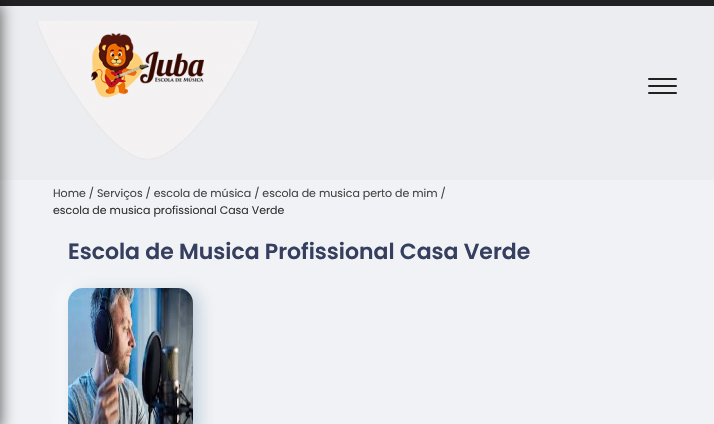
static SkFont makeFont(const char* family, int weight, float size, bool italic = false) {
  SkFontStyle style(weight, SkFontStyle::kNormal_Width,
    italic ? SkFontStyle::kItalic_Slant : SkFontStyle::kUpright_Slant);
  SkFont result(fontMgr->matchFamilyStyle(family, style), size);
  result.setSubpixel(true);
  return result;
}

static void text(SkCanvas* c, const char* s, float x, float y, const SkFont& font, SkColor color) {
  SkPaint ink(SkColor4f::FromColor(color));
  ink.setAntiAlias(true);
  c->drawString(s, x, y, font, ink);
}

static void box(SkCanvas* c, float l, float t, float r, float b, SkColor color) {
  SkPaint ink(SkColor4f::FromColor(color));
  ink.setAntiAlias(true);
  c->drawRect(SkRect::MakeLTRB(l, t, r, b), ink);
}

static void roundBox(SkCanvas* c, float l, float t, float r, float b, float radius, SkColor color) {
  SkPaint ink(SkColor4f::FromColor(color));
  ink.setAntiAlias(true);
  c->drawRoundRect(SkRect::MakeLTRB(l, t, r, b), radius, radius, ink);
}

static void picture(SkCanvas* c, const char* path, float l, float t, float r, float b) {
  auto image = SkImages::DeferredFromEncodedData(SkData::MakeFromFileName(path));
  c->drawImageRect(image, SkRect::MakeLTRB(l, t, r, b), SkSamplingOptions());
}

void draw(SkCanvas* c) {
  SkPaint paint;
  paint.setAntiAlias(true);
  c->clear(0xfff0f2f5);
  box(c, 0, 6, 714, 180, 0xffebedf0);
  box(c, 0, 0, 714, 6, 0xff212121);
  picture(c, "img_01.png", 36, 20, 260, 160);
  roundBox(c, 648, 78, 677, 80, 1, 0xff212121);
  roundBox(c, 648, 85, 677, 87, 1, 0xff212121);
  roundBox(c, 648, 92, 677, 94, 1, 0xff212121);
  paint.setColor(0x99000000);
  paint.setMaskFilter(SkMaskFilter::MakeBlur(kNormal_SkBlurStyle, 7.5f));
  c->drawRect(SkRect::MakeLTRB(-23, 4, 1, 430), paint);
  paint.setMaskFilter(nullptr);
  SkFont face1 = makeFont("Poppins", 400, 11);
  text(c, "Home / Serviços / escola de música / escola de musica perto de mim /", 53, 197, face1, 0xff444444);
  text(c, "escola de musica profissional Casa Verde", 53, 214, face1, 0xff333333);
  SkFont face2 = makeFont("Poppins", 600, 22);
  text(c, "Escola de Musica Profissional Casa Verde", 68, 259, face2, 0xff363f5f);
  paint.setColor(0xccffffff);
  paint.setMaskFilter(SkMaskFilter::MakeBlur(kNormal_SkBlurStyle, 8));
  c->drawRoundRect(SkRect::MakeLTRB(62, 286, 187, 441), 15, 15, paint);
  paint.setMaskFilter(nullptr);
  paint.setColor(0x7a88a5bf);
  paint.setMaskFilter(SkMaskFilter::MakeBlur(kNormal_SkBlurStyle, 8));
  c->drawRoundRect(SkRect::MakeLTRB(74, 290, 199, 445), 15, 15, paint);
  paint.setMaskFilter(nullptr);
  picture(c, "img_02.png", 68, 288, 193, 424);
}
